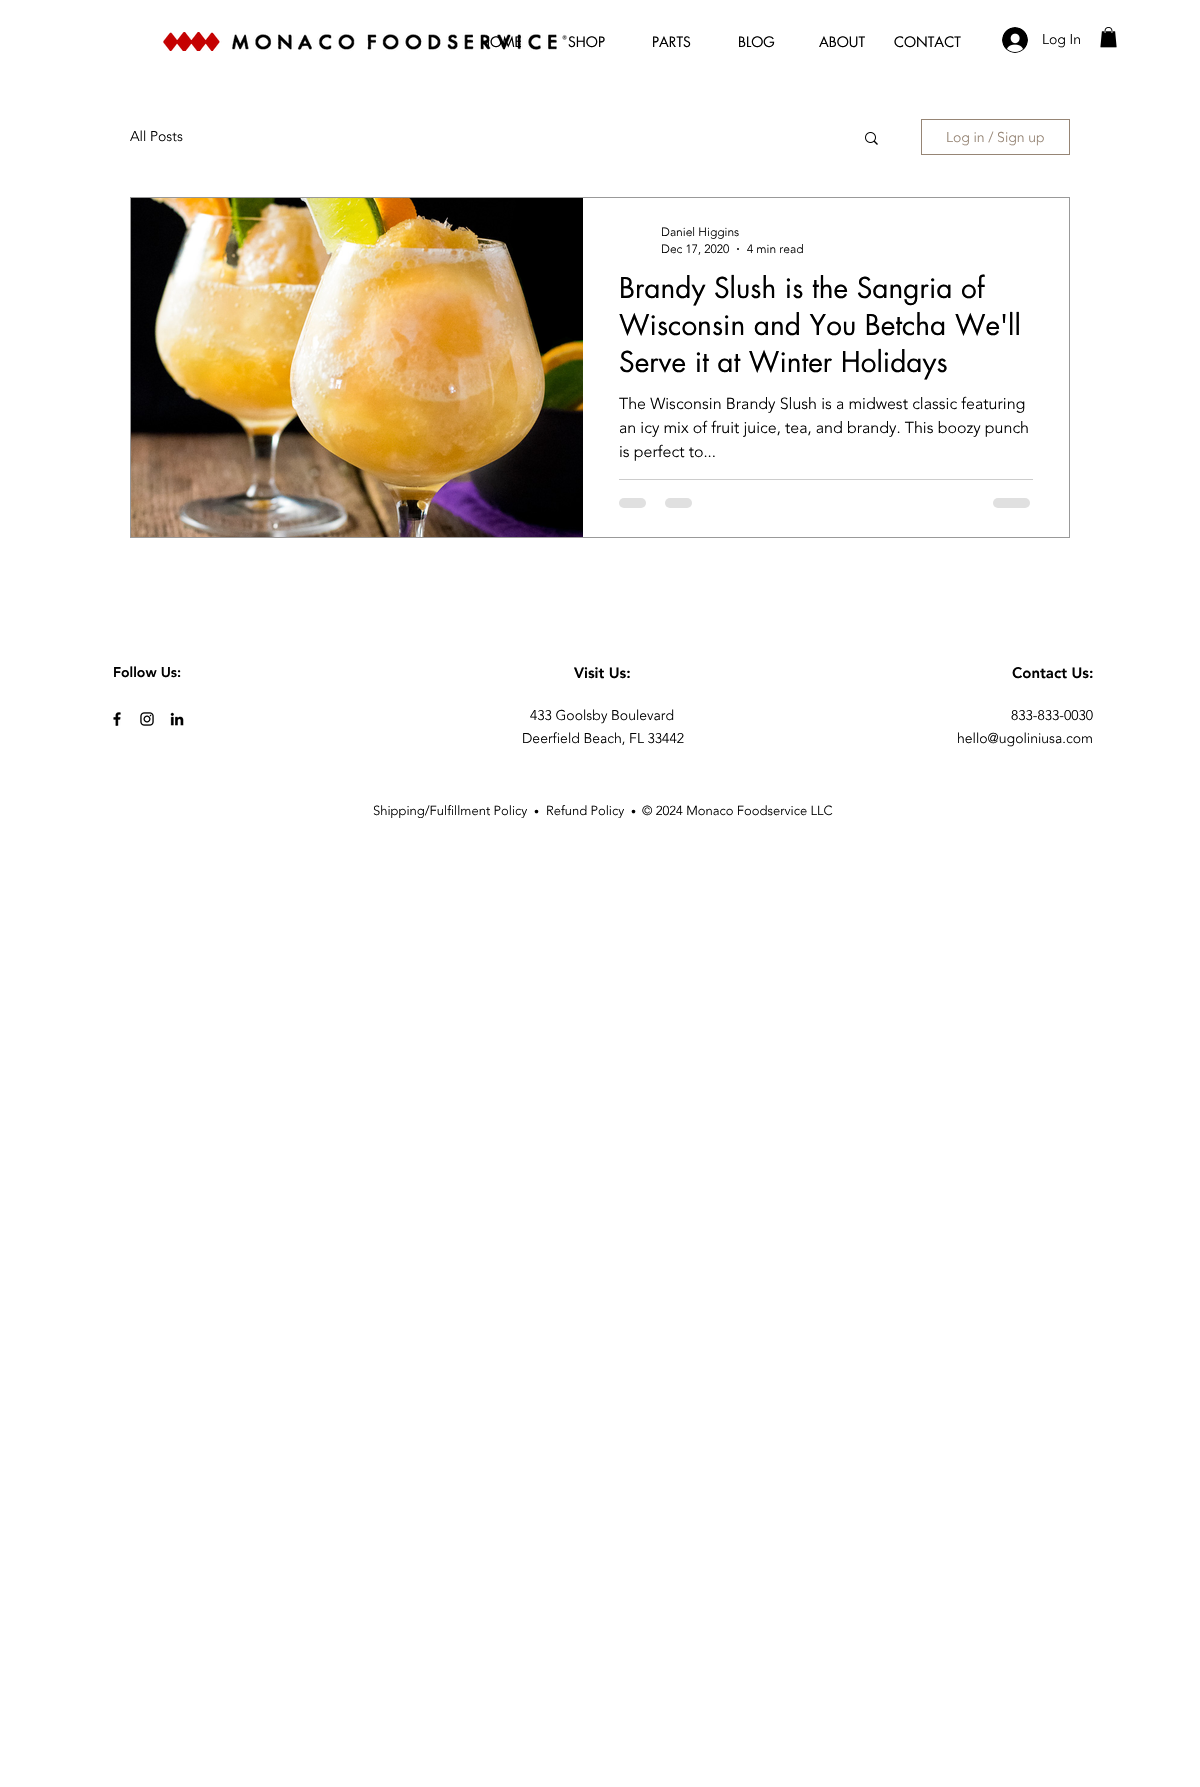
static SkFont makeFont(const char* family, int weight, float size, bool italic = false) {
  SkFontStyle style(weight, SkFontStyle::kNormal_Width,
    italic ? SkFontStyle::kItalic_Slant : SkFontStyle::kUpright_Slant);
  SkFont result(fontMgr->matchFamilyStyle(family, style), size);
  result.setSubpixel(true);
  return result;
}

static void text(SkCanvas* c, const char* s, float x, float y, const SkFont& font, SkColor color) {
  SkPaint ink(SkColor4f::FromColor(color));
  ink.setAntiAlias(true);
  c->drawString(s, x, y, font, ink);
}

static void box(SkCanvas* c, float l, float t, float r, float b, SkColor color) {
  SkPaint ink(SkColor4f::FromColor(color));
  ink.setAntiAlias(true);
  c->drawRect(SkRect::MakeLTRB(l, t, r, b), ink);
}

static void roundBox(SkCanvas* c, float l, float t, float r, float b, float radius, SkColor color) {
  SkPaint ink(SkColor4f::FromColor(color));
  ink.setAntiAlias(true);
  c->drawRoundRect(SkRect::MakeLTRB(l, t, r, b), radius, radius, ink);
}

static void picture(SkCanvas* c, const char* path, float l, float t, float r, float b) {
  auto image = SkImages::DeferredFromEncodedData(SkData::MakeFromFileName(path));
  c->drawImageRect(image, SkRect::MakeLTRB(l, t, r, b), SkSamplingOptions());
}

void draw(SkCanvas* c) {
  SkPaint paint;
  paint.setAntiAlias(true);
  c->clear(0xffffffff);
  picture(c, "img_01.png", 163, 32, 568, 51);
  SkFont face1 = makeFont("futura", 400, 14);
  text(c, "HOME", 480, 47, face1, 0xff000000);
  text(c, "SHOP", 568, 47, face1, 0xff000000);
  text(c, "PARTS", 652, 47, face1, 0xff000000);
  text(c, "BLOG", 738, 47, face1, 0xff000000);
  text(c, "ABOUT", 819, 47, face1, 0xff000000);
  text(c, "CONTACT", 894, 47, face1, 0xff000000);
  picture(c, "img_02.png", 1002, 27, 1028, 53);
  SkFont face2 = makeFont("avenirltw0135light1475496", 300, 14);
  text(c, "Log In", 1042, 44, face2, 0xff000000);
  picture(c, "img_03.png", 1100, 27, 1117, 48);
  text(c, "All Posts", 130, 141, face2, 0xff000000);
  picture(c, "img_04.png", 865, 132, 878, 145);
  paint.setStyle(SkPaint::kStroke_Style);
  paint.setStrokeWidth(1);
  paint.setColor(0xff968575);
  c->drawRect(SkRect::MakeLTRB(921.5f, 119.5f, 1069.5f, 154.5f), paint);
  text(c, "Log in / Sign up", 946, 142, face2, 0xff968575);
  paint.setColor(0xff999999);
  c->drawRect(SkRect::MakeLTRB(130.5f, 197.5f, 1069.5f, 537.5f), paint);
  picture(c, "img_05.png", 131, 198, 583, 537);
  SkFont face3 = makeFont("avenirltw0135light1475496", 300, 12);
  text(c, "Daniel Higgins", 661, 236, face3, 0xff000000);
  text(c, "Dec 17, 2020", 661, 253, face3, 0xff000000);
  paint.setStyle(SkPaint::kFill_Style);
  paint.setColor(0xff000000);
  c->drawCircle(738, 249, 1, paint);
  text(c, "4 min read", 747, 253, face3, 0xff000000);
  SkFont face4 = makeFont("futura", 400, 28);
  text(c, "Brandy Slush is the Sangria of", 619, 298, face4, 0xff000000);
  text(c, "Wisconsin and You Betcha We'll", 619, 335, face4, 0xff000000);
  text(c, "Serve it at Winter Holidays", 619, 372, face4, 0xff000000);
  SkFont face5 = makeFont("avenirltw0135light1475496", 300, 16);
  text(c, "The Wisconsin Brandy Slush is a midwest classic featuring", 619, 409, face5, 0xff000000);
  text(c, "an icy mix of fruit juice, tea, and brandy. This boozy punch", 619, 433, face5, 0xff000000);
  text(c, "is perfect to...", 619, 457, face5, 0xff000000);
  box(c, 619, 479, 1033, 480, 0xffcccccc);
  roundBox(c, 619, 498, 646, 508, 5, 0xffe0e0e0);
  roundBox(c, 665, 498, 692, 508, 5, 0xffe0e0e0);
  roundBox(c, 993, 498, 1030, 508, 5, 0xffe0e0e0);
  SkFont face6 = makeFont("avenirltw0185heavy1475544", 900, 14);
  text(c, "Follow Us:", 113, 677, face6, 0xff000000);
  SkFont face7 = makeFont("avenirltw0185heavy1475544", 900, 15);
  text(c, "Visit Us:", 574, 678, face7, 0xff000000);
  text(c, "Contact Us:", 1012, 678, face7, 0xff000000);
  picture(c, "img_06.png", 113, 712, 121, 726);
  picture(c, "img_07.png", 140, 712, 154, 726);
  picture(c, "img_08.png", 170, 712, 184, 726);
  text(c, "433 Goolsby Boulevard", 530, 720, face2, 0xff000000);
  text(c, "Deerfield Beach, FL 33442", 522, 743, face2, 0xff000000);
  text(c, "833-833-0030", 1011, 720, face2, 0xff000000);
  text(c, "hello@ugoliniusa.com", 957, 743, face2, 0xff000000);
  SkFont face8 = makeFont("avenirltw0135light1475496", 300, 13);
  text(c, "Shipping/Fulfillment Policy", 373, 815, face8, 0xff000000);
  SkFont face9 = makeFont("avenirltw0135light1475496", 300, 10);
  text(c, "•", 534, 815, face9, 0xff000000);
  text(c, "Refund Policy", 546, 815, face8, 0xff000000);
  text(c, "•", 631, 815, face9, 0xff000000);
  text(c, "© 2024 Monaco Foodservice LLC", 642, 815, face8, 0xff000000);
}
